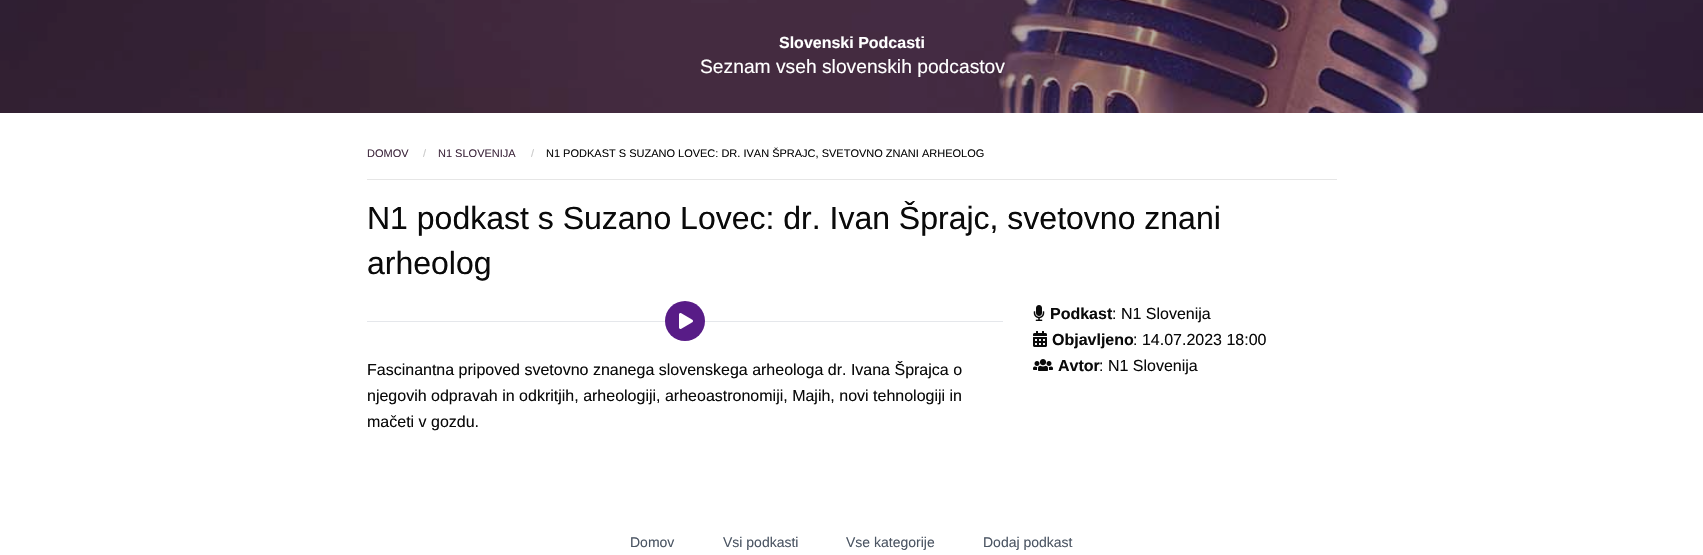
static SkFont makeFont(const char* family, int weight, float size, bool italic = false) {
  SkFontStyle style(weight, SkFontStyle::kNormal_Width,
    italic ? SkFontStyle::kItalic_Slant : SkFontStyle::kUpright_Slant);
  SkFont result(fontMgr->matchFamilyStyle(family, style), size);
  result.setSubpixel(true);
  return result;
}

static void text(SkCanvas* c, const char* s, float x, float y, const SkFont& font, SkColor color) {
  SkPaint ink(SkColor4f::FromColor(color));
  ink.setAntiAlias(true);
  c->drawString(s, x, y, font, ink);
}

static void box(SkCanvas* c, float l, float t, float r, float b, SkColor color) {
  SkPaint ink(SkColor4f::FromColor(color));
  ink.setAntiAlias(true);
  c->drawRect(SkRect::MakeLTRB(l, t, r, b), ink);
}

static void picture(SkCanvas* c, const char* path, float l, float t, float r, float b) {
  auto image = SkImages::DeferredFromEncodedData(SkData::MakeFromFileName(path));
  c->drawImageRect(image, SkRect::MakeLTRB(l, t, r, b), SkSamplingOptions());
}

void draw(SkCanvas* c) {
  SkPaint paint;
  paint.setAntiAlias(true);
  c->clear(0xffffffff);
  picture(c, "img_01.png", 0, 0, 1703, 113);
  SkFont face1 = makeFont("Liberation Sans", 700, 16);
  text(c, "Slovenski Podcasti", 779, 48, face1, 0xffffffff);
  SkFont face2 = makeFont("Liberation Sans", 400, 19.25f);
  text(c, "Seznam vseh slovenskih podcastov", 700, 73, face2, 0xffffffff);
  SkFont face3 = makeFont("Liberation Sans", 400, 11);
  text(c, "DOMOV", 367, 157, face3, 0xff412b40);
  text(c, "/", 423, 157, face3, 0xffcacaca);
  text(c, "N1 SLOVENIJA", 438, 157, face3, 0xff412b40);
  text(c, "/", 531, 157, face3, 0xffcacaca);
  text(c, "N1 PODKAST S SUZANO LOVEC: DR. IVAN ŠPRAJC, SVETOVNO ZNANI ARHEOLOG", 546, 157, face3, 0xff0a0a0a);
  box(c, 367, 179, 1337, 180, 0xffe6e6e6);
  SkFont face4 = makeFont("Liberation Sans", 400, 32);
  text(c, "N1 podkast s Suzano Lovec: dr. Ivan Šprajc, svetovno znani", 367, 229, face4, 0xff0a0a0a);
  text(c, "arheolog", 367, 274, face4, 0xff0a0a0a);
  picture(c, "img_02.png", 1033, 305, 1045, 321);
  text(c, "Podkast", 1050, 319, face1, 0xff0a0a0a);
  SkFont face5 = makeFont("Liberation Sans", 400, 16);
  text(c, ": N1 Slovenija", 1112, 319, face5, 0xff0a0a0a);
  picture(c, "img_03.png", 1033, 331, 1047, 347);
  text(c, "Objavljeno", 1052, 345, face1, 0xff0a0a0a);
  text(c, ": 14.07.2023 18:00", 1133, 345, face5, 0xff0a0a0a);
  picture(c, "img_04.png", 1033, 359, 1053, 371);
  text(c, "Avtor", 1058, 371, face1, 0xff0a0a0a);
  text(c, ": N1 Slovenija", 1099, 371, face5, 0xff0a0a0a);
  box(c, 367, 321, 1003, 322, 0xffe5e7eb);
  paint.setColor(0xff581c87);
  c->drawCircle(685, 321, 20, paint);
  picture(c, "img_05.png", 679, 313, 693, 329);
  text(c, "Fascinantna pripoved svetovno znanega slovenskega arheologa dr. Ivana Šprajca o", 367, 375, face5, 0xff0a0a0a);
  text(c, "njegovih odpravah in odkritjih, arheologiji, arheoastronomiji, Majih, novi tehnologiji in", 367, 401, face5, 0xff0a0a0a);
  text(c, "mačeti v gozdu.", 367, 427, face5, 0xff0a0a0a);
  SkFont face6 = makeFont("Liberation Sans", 400, 14);
  text(c, "Domov", 630, 547, face6, 0xff4b5563);
  text(c, "Vsi podkasti", 723, 547, face6, 0xff4b5563);
  text(c, "Vse kategorije", 846, 547, face6, 0xff4b5563);
  text(c, "Dodaj podkast", 983, 547, face6, 0xff4b5563);
}
